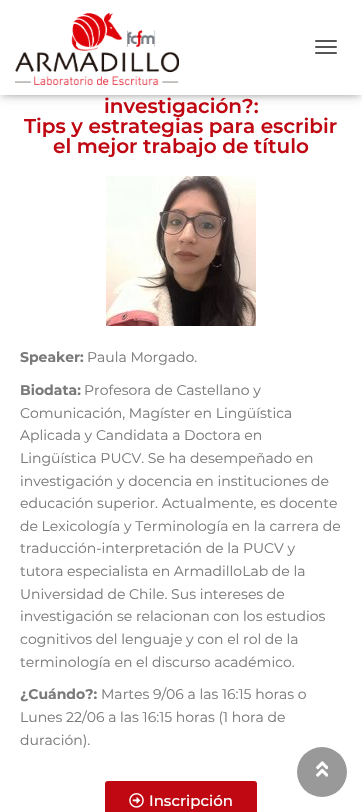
static SkFont makeFont(const char* family, int weight, float size, bool italic = false) {
  SkFontStyle style(weight, SkFontStyle::kNormal_Width,
    italic ? SkFontStyle::kItalic_Slant : SkFontStyle::kUpright_Slant);
  SkFont result(fontMgr->matchFamilyStyle(family, style), size);
  result.setSubpixel(true);
  return result;
}

static void text(SkCanvas* c, const char* s, float x, float y, const SkFont& font, SkColor color) {
  SkPaint ink(SkColor4f::FromColor(color));
  ink.setAntiAlias(true);
  c->drawString(s, x, y, font, ink);
}

static void box(SkCanvas* c, float l, float t, float r, float b, SkColor color) {
  SkPaint ink(SkColor4f::FromColor(color));
  ink.setAntiAlias(true);
  c->drawRect(SkRect::MakeLTRB(l, t, r, b), ink);
}

static void roundBox(SkCanvas* c, float l, float t, float r, float b, float radius, SkColor color) {
  SkPaint ink(SkColor4f::FromColor(color));
  ink.setAntiAlias(true);
  c->drawRoundRect(SkRect::MakeLTRB(l, t, r, b), radius, radius, ink);
}

static void picture(SkCanvas* c, const char* path, float l, float t, float r, float b) {
  auto image = SkImages::DeferredFromEncodedData(SkData::MakeFromFileName(path));
  c->drawImageRect(image, SkRect::MakeLTRB(l, t, r, b), SkSamplingOptions());
}

void draw(SkCanvas* c) {
  SkPaint paint;
  paint.setAntiAlias(true);
  c->clear(0xffffffff);
  paint.setColor(0x1a000000);
  paint.setMaskFilter(SkMaskFilter::MakeBlur(kNormal_SkBlurStyle, 2.5f));
  c->drawRect(SkRect::MakeLTRB(2, 6, 360, 97), paint);
  paint.setMaskFilter(nullptr);
  paint.setColor(0x1f000000);
  paint.setMaskFilter(SkMaskFilter::MakeBlur(kNormal_SkBlurStyle, 5));
  c->drawRect(SkRect::MakeLTRB(0, 1, 362, 96), paint);
  paint.setMaskFilter(nullptr);
  paint.setColor(0x6b000000);
  paint.setMaskFilter(SkMaskFilter::MakeBlur(kNormal_SkBlurStyle, 5));
  c->drawRect(SkRect::MakeLTRB(6, 7, 356, 90), paint);
  paint.setMaskFilter(nullptr);
  box(c, 0, 0, 362, 95, 0xffffffff);
  picture(c, "img_01.png", 15, 12, 179, 85);
  roundBox(c, 315, 40, 337, 42, 1, 0xff555555);
  roundBox(c, 315, 46, 337, 48, 1, 0xff555555);
  roundBox(c, 315, 52, 337, 54, 1, 0xff555555);
  SkFont face1 = makeFont("Montserrat", 600, 20);
  text(c, "investigación?:", 104, 113, face1, 0xffbf0811);
  text(c, "Tips y estrategias para escribir", 24, 133, face1, 0xffbf0811);
  text(c, "el mejor trabajo de título", 53, 153, face1, 0xffbf0811);
  picture(c, "img_02.png", 106, 176, 256, 326);
  SkFont face2 = makeFont("Montserrat", 700, 14);
  text(c, "Speaker:", 20, 362, face2, 0xff7a7a7a);
  SkFont face3 = makeFont("Montserrat", 400, 14);
  text(c, "Paula Morgado.", 87, 362, face3, 0xff7a7a7a);
  text(c, "Biodata:", 20, 395, face2, 0xff7a7a7a);
  text(c, "Profesora de Castellano y", 84, 395, face3, 0xff7a7a7a);
  text(c, "Comunicación, Magíster en Lingüística", 20, 418, face3, 0xff7a7a7a);
  text(c, "Aplicada y Candidata a Doctora en", 20, 440, face3, 0xff7a7a7a);
  text(c, "Lingüística PUCV. Se ha desempeñado en", 20, 463, face3, 0xff7a7a7a);
  text(c, "investigación y docencia en instituciones de", 20, 486, face3, 0xff7a7a7a);
  text(c, "educación superior. Actualmente, es docente", 20, 508, face3, 0xff7a7a7a);
  text(c, "de Lexicología y Terminología en la carrera de", 20, 531, face3, 0xff7a7a7a);
  text(c, "traducción-interpretación de la PUCV y", 20, 553, face3, 0xff7a7a7a);
  text(c, "tutora especialista en ArmadilloLab de la", 20, 576, face3, 0xff7a7a7a);
  text(c, "Universidad de Chile. Sus intereses de", 20, 599, face3, 0xff7a7a7a);
  text(c, "investigación se relacionan con los estudios", 20, 621, face3, 0xff7a7a7a);
  text(c, "cognitivos del lenguaje y con el rol de la", 20, 644, face3, 0xff7a7a7a);
  text(c, "terminología en el discurso académico.", 20, 667, face3, 0xff7a7a7a);
  text(c, "¿Cuándo?:", 20, 699, face2, 0xff7a7a7a);
  text(c, "Martes 9/06 a las 16:15 horas o", 101, 699, face3, 0xff7a7a7a);
  text(c, "Lunes 22/06 a las 16:15 horas (1 hora de", 20, 722, face3, 0xff7a7a7a);
  text(c, "duración).", 20, 745, face3, 0xff7a7a7a);
  roundBox(c, 105, 781, 257, 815, 3, 0xffbf0811);
  picture(c, "img_03.png", 129, 793, 144, 808);
  SkFont face4 = makeFont("Montserrat", 500, 15);
  text(c, "Inscripción", 149, 806, face4, 0xffffffff);
  paint.setColor(0xff999999);
  c->drawCircle(322, 772, 25, paint);
  picture(c, "img_04.png", 316, 761, 328, 777);
}
